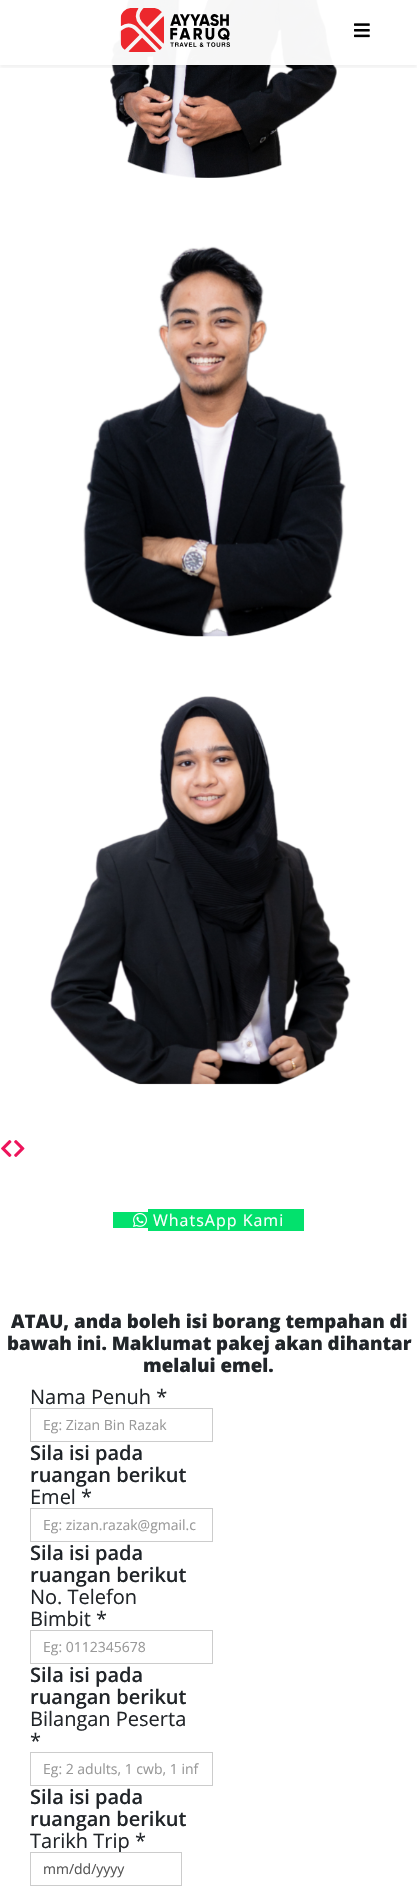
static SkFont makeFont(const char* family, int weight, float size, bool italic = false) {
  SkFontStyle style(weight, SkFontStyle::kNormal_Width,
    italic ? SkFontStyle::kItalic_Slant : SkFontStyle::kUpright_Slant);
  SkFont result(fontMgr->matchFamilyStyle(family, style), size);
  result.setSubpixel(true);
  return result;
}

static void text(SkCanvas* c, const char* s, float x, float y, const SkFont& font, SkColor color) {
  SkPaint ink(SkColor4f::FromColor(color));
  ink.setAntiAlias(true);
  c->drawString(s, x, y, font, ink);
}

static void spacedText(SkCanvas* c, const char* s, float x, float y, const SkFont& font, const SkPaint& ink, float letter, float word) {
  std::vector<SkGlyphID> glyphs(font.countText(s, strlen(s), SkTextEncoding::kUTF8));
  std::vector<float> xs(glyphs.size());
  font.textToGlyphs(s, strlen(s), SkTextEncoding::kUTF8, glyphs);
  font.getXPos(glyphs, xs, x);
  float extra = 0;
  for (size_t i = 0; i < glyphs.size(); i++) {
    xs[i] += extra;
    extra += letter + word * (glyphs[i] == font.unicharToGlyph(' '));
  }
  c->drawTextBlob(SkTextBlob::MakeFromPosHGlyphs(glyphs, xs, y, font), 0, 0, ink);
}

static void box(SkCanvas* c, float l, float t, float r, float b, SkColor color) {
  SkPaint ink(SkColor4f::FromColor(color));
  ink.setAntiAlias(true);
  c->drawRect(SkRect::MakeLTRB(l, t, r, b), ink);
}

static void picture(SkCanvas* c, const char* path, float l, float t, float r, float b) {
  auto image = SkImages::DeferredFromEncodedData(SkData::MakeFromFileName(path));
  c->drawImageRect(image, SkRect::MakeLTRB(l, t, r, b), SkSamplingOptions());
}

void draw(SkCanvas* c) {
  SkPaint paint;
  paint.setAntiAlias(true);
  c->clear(0xffffffff);
  picture(c, "img_03.png", 110, 0, 337, 178);
  c->save();
  c->clipRect(SkRect::MakeLTRB(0, 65, 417, 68));
  paint.setColor(0x0d000000);
  paint.setMaskFilter(SkMaskFilter::MakeBlur(kNormal_SkBlurStyle, 1.5f));
  c->drawRect(SkRect::MakeLTRB(0, 3, 417, 68), paint);
  paint.setMaskFilter(nullptr);
  c->restore();
  box(c, 110, 0, 335, 65, 0xf5ffffff);
  picture(c, "img_01.png", 120, 8, 230, 52);
  picture(c, "img_02.png", 354, 23, 370, 38);
  picture(c, "img_04.png", 83, 246, 346, 637);
  picture(c, "img_05.png", 50, 696, 351, 1085);
  picture(c, "img_06.png", 1, 1140, 12, 1157);
  picture(c, "img_07.png", 14, 1140, 25, 1157);
  box(c, 113, 1212, 148, 1228, 0xff03e16d);
  box(c, 148, 1209, 304, 1231, 0xff03e16d);
  picture(c, "img_08.png", 133, 1213, 147, 1227);
  SkFont face1 = makeFont("Open Sans", 400, 16);
  paint.setColor(0xffffffff);
  spacedText(c, "WhatsApp Kami", 153, 1226, face1, paint, 1, 0);
  SkFont face2 = makeFont("Open Sans", 800, 18.7f);
  text(c, "ATAU, anda boleh isi borang tempahan di", 11, 1328, face2, 0xff212529);
  text(c, "bawah ini. Maklumat pakej akan dihantar", 7, 1350, face2, 0xff212529);
  text(c, "melalui emel.", 143, 1372, face2, 0xff212529);
  SkFont face3 = makeFont("Open Sans", 400, 20);
  text(c, "Nama Penuh *", 30, 1404, face3, 0xff212529);
  paint.setStyle(SkPaint::kStroke_Style);
  paint.setStrokeWidth(1);
  paint.setColor(0xffcccccc);
  c->drawRect(SkRect::MakeLTRB(30.5f, 1408.5f, 212.5f, 1441.5f), paint);
  SkFont face4 = makeFont("Open Sans", 400, 14);
  text(c, "Eg: Zizan Bin Razak", 43, 1430, face4, 0xff999999);
  SkFont face5 = makeFont("Open Sans", 600, 20);
  text(c, "Sila isi pada", 30, 1460, face5, 0xff212529);
  text(c, "ruangan berikut", 30, 1482, face5, 0xff212529);
  text(c, "Emel *", 30, 1504, face3, 0xff212529);
  c->drawRect(SkRect::MakeLTRB(30.5f, 1508.5f, 212.5f, 1541.5f), paint);
  text(c, "Eg: zizan.razak@gmail.c", 43, 1530, face4, 0xff999999);
  text(c, "Sila isi pada", 30, 1560, face5, 0xff212529);
  text(c, "ruangan berikut", 30, 1582, face5, 0xff212529);
  text(c, "No. Telefon", 30, 1604, face3, 0xff212529);
  text(c, "Bimbit *", 30, 1626, face3, 0xff212529);
  c->drawRect(SkRect::MakeLTRB(30.5f, 1630.5f, 212.5f, 1663.5f), paint);
  text(c, "Eg: 0112345678", 43, 1652, face4, 0xff999999);
  text(c, "Sila isi pada", 30, 1682, face5, 0xff212529);
  text(c, "ruangan berikut", 30, 1704, face5, 0xff212529);
  text(c, "Bilangan Peserta", 30, 1726, face3, 0xff212529);
  text(c, "*", 30, 1748, face3, 0xff212529);
  c->drawRect(SkRect::MakeLTRB(30.5f, 1752.5f, 212.5f, 1785.5f), paint);
  text(c, "Eg: 2 adults, 1 cwb, 1 inf", 43, 1774, face4, 0xff999999);
  text(c, "Sila isi pada", 30, 1804, face5, 0xff212529);
  text(c, "ruangan berikut", 30, 1826, face5, 0xff212529);
  text(c, "Tarikh Trip *", 30, 1848, face3, 0xff212529);
  c->drawRect(SkRect::MakeLTRB(30.5f, 1852.5f, 181.5f, 1885.5f), paint);
  text(c, "mm/dd/yyyy", 43, 1874, face4, 0xff555555);
}
